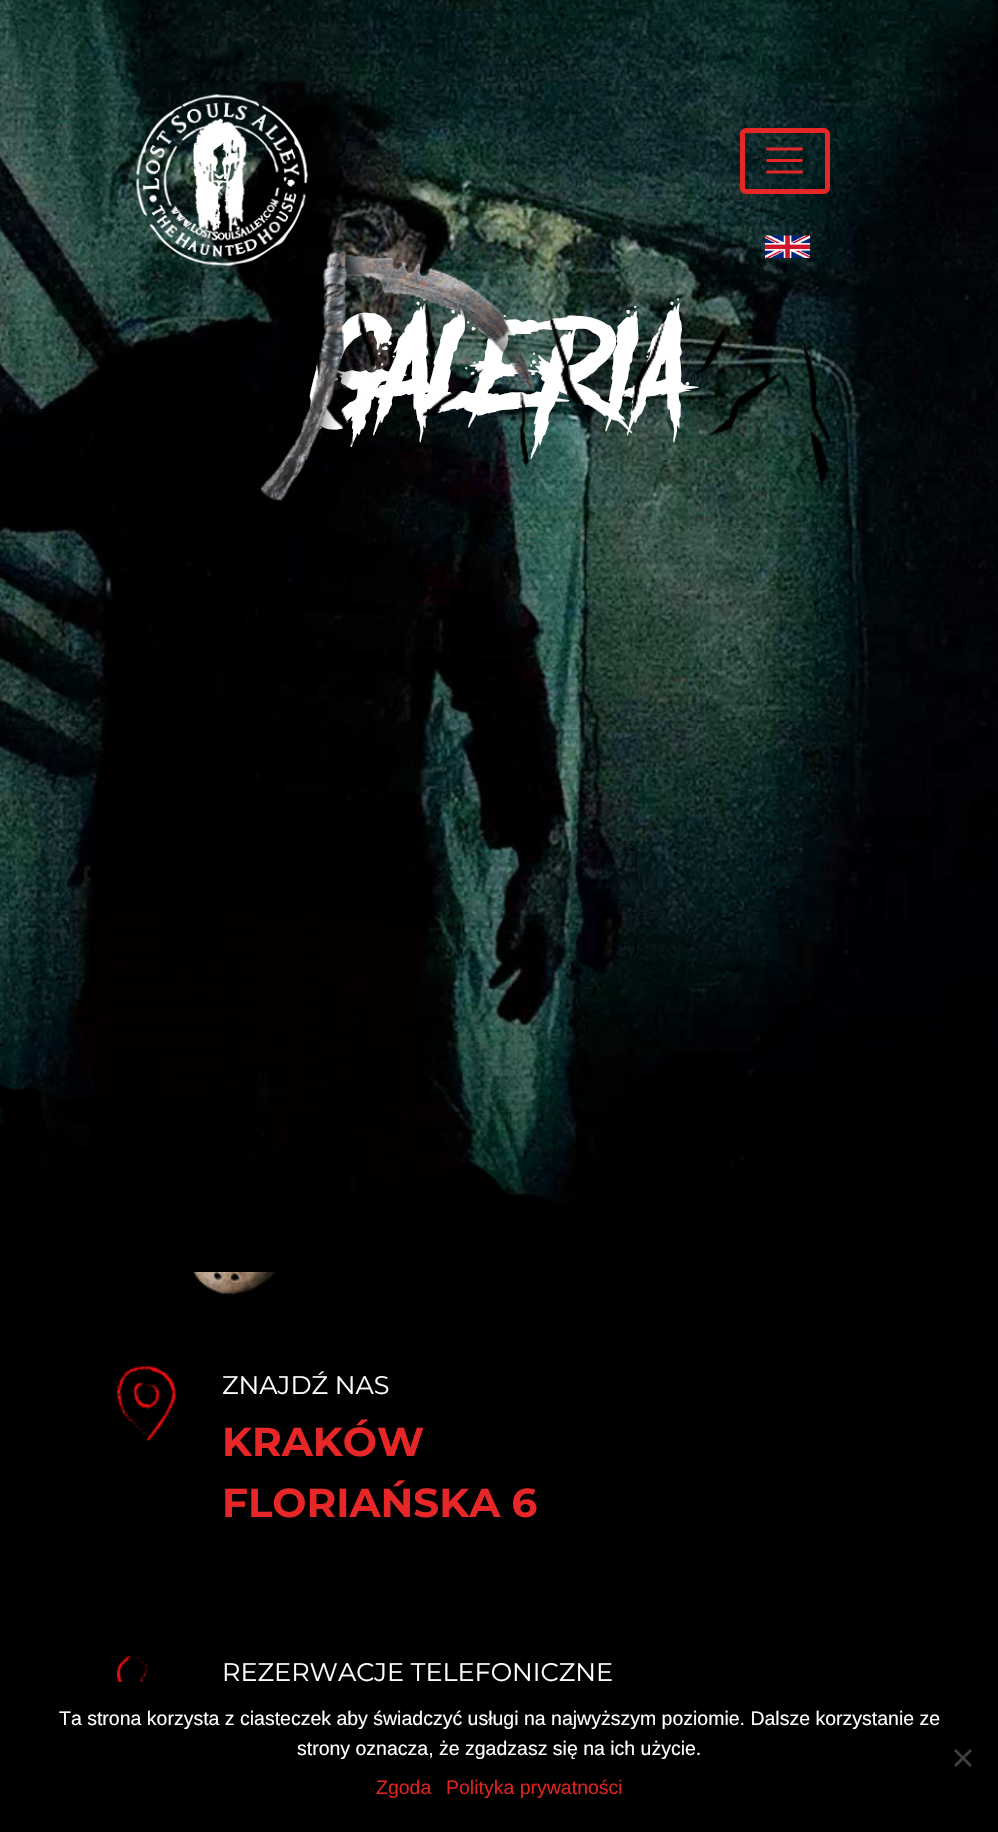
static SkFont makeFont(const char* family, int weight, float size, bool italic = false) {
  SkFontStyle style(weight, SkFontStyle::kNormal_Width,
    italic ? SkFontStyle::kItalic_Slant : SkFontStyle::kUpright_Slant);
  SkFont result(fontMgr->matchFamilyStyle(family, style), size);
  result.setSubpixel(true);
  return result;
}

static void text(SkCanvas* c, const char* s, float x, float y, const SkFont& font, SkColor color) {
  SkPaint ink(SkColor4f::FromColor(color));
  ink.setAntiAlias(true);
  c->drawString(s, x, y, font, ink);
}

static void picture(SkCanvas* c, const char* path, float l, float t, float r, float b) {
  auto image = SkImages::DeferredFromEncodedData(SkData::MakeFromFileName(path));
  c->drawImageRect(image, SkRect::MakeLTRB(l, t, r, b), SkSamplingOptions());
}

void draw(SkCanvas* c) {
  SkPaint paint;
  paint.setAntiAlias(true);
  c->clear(0xff000000);
  picture(c, "img_03.png", 0, 0, 998, 1272);
  SkFont face1 = makeFont("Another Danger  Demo", 400, 120);
  text(c, "Galeria", 316, 389, face1, 0xffffffff);
  picture(c, "img_04.png", 261, 250, 830, 501);
  picture(c, "img_01.png", 136, 94, 308, 266);
  paint.setStyle(SkPaint::kStroke_Style);
  paint.setStrokeWidth(5);
  paint.setColor(0xffe72727);
  c->drawRoundRect(SkRect::MakeLTRB(742.5f, 130.5f, 827.5f, 191.5f), 3.5f, 3.5f, paint);
  paint.setStrokeWidth(2.8f);
  paint.setStrokeCap(SkPaint::kRound_Cap);
  c->drawPath(SkPathBuilder().moveTo(767.5f, 149).lineTo(801.5f, 149).moveTo(767.5f, 160.5f).lineTo(801.5f, 160.5f).moveTo(767.5f, 172).lineTo(801.5f, 172).detach(), paint);
  picture(c, "img_02.png", 765, 235, 810, 258);
  picture(c, "img_05.png", 193, 1272, 299, 1295);
  picture(c, "img_06.png", 117, 1366, 176, 1442);
  SkFont face2 = makeFont("Montserrat", 400, 25.5f);
  text(c, "ZNAJDŹ NAS", 222, 1394, face2, 0xffffffff);
  SkFont face3 = makeFont("Montserrat", 700, 40.5f);
  text(c, "KRAKÓW", 222, 1456, face3, 0xffe72727);
  text(c, "FLORIAŃSKA 6", 222, 1517, face3, 0xffe72727);
  picture(c, "img_07.png", 117, 1654, 149, 1682);
  text(c, "REZERWACJE TELEFONICZNE", 222, 1681, face2, 0xffffffff);
  SkFont face4 = makeFont("Liberation Sans", 400, 19.5f);
  text(c, "Ta strona korzysta z ciasteczek aby świadczyć usługi na najwyższym poziomie. Dalsze korzystanie ze", 59, 1725, face4, 0xffffffff);
  text(c, "strony oznacza, że zgadzasz się na ich użycie.", 297, 1755, face4, 0xffffffff);
  paint.setStyle(SkPaint::kFill_Style);
  paint.setColor(0xff404040);
  c->drawPath(SkPathBuilder().moveTo(970, 1749).lineTo(972, 1751).lineTo(956, 1767).lineTo(954, 1765).close().detach(), paint);
  c->drawPath(SkPathBuilder().moveTo(954, 1751).lineTo(956, 1749).lineTo(972, 1765).lineTo(970, 1767).close().detach(), paint);
  text(c, "Zgoda", 376, 1794, face4, 0xffdd231f);
  text(c, "Polityka prywatności", 446, 1794, face4, 0xffdd231f);
}
